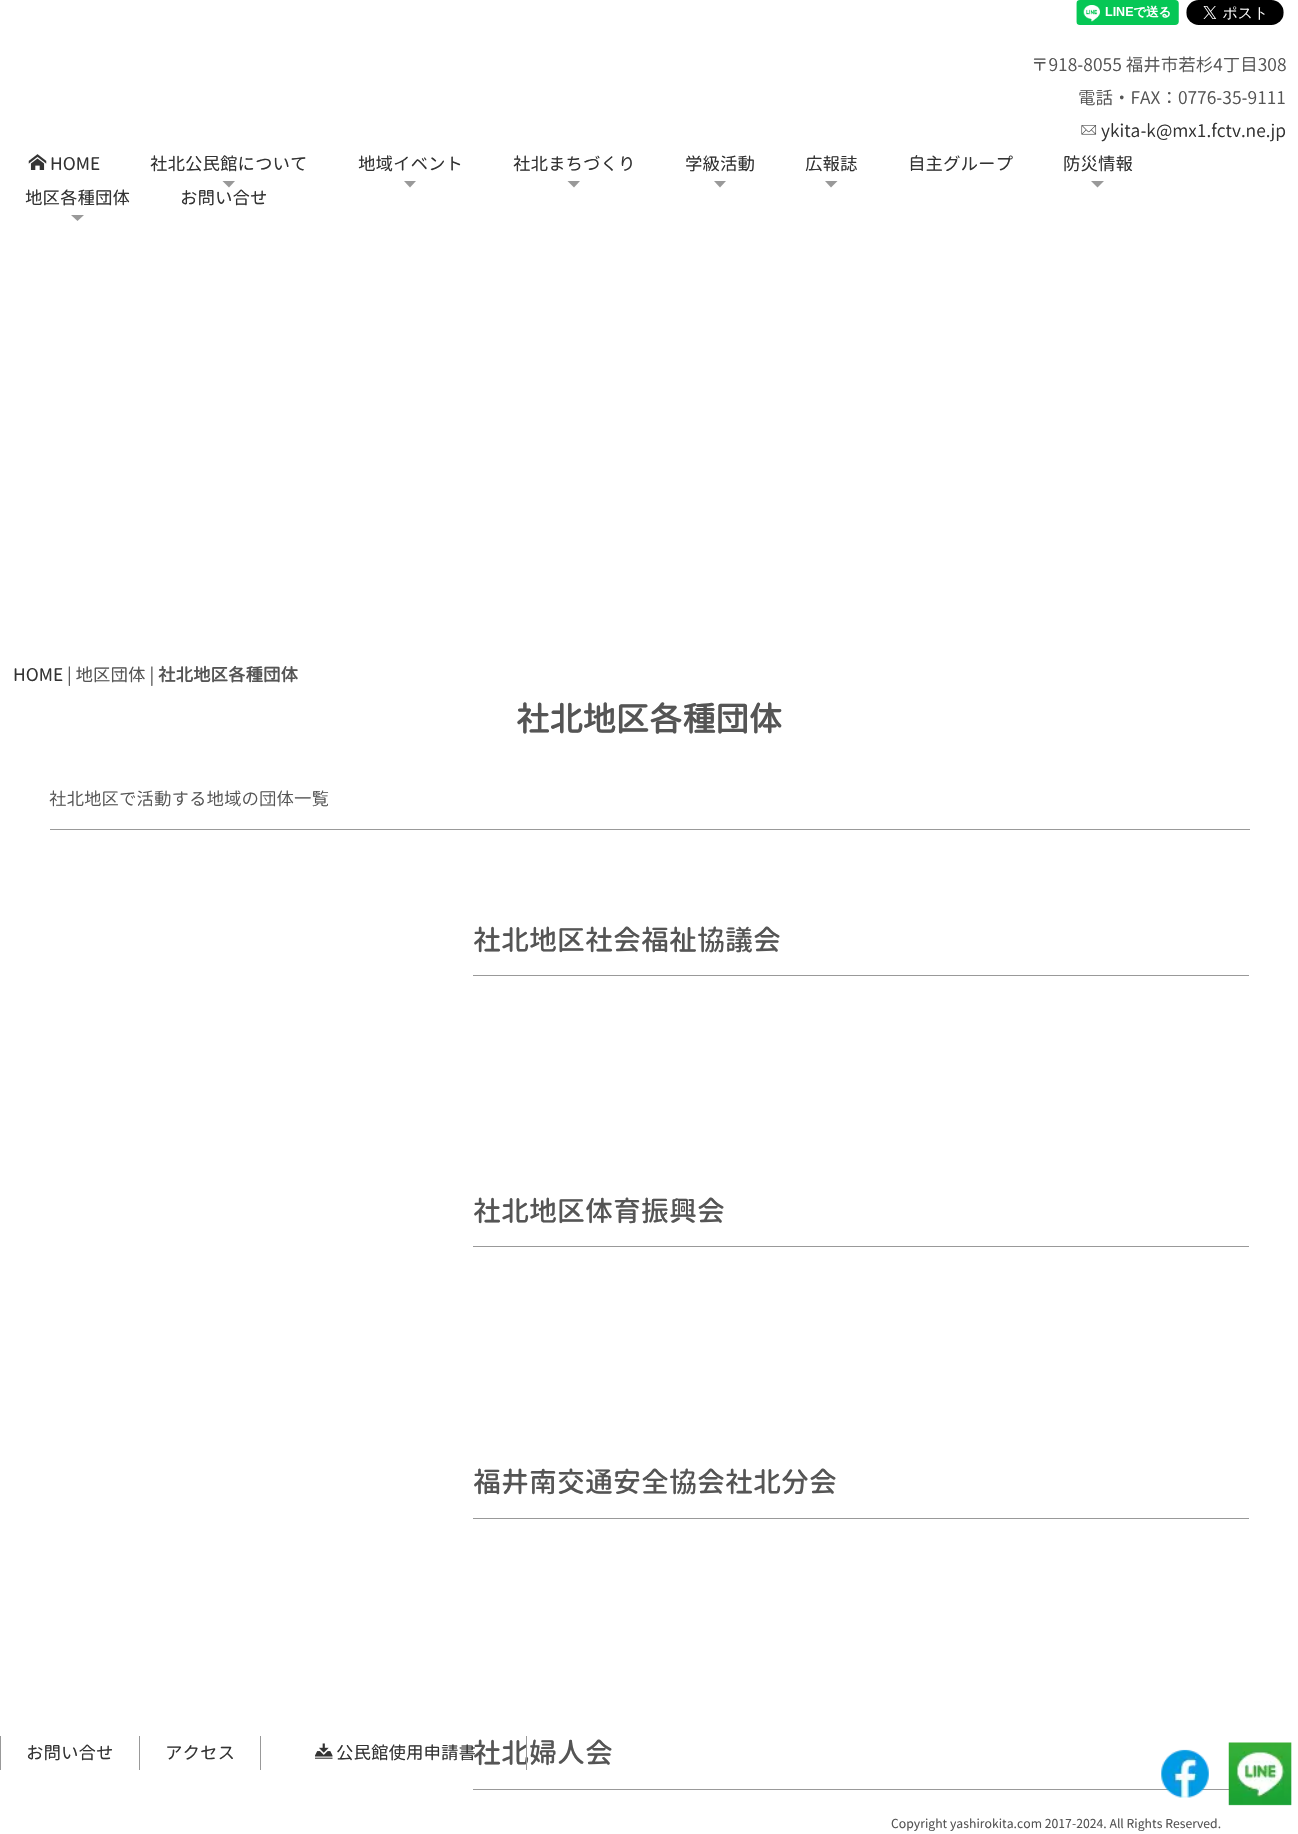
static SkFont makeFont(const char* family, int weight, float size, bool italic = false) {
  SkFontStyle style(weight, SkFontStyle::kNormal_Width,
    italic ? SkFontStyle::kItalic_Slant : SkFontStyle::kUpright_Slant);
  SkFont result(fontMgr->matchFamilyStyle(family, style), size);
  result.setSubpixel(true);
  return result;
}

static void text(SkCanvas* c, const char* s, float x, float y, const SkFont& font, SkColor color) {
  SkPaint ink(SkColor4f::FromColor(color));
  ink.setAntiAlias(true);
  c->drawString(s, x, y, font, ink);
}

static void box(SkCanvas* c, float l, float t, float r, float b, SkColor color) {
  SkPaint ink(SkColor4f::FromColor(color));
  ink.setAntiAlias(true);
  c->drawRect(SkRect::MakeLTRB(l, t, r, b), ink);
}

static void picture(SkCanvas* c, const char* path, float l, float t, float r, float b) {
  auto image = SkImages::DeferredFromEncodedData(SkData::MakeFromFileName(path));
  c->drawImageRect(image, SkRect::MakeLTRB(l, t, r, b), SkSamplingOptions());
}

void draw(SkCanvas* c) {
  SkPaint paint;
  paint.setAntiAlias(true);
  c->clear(0xffffffff);
  picture(c, "img_01.png", 1076, 0, 1179, 25);
  picture(c, "img_02.png", 1186, 0, 1284, 25);
  SkFont face1 = makeFont("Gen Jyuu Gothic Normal", 300, 17.5f);
  text(c, "〒918-8055 福井市若杉4丁目308", 1031, 71, face1, 0xff555555);
  text(c, "電話・FAX：0776-35-9111", 1078, 104, face1, 0xff555555);
  picture(c, "img_03.png", 1081, 125, 1097, 135);
  text(c, "ykita-k@mx1.fctv.ne.jp", 1101, 137, face1, 0xff333333);
  picture(c, "img_04.png", 28, 154, 47, 170);
  SkFont face2 = makeFont("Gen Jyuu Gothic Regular", 400, 17.5f);
  text(c, "HOME", 50, 170, face2, 0xff333333);
  text(c, "社北公民館について", 150, 170, face2, 0xff333333);
  paint.setColor(0xff999999);
  c->drawPath(SkPathBuilder().moveTo(222.5f, 181).lineTo(235, 181).lineTo(229, 187.5f).close().detach(), paint);
  text(c, "地域イベント", 358, 170, face2, 0xff333333);
  c->drawPath(SkPathBuilder().moveTo(404, 181).lineTo(416, 181).lineTo(410, 187.5f).close().detach(), paint);
  text(c, "社北まちづくり", 513, 170, face2, 0xff333333);
  c->drawPath(SkPathBuilder().moveTo(567.5f, 181).lineTo(580, 181).lineTo(574, 187.5f).close().detach(), paint);
  text(c, "学級活動", 685, 170, face2, 0xff333333);
  c->drawPath(SkPathBuilder().moveTo(714, 181).lineTo(726, 181).lineTo(720, 187.5f).close().detach(), paint);
  text(c, "広報誌", 805, 170, face2, 0xff333333);
  c->drawPath(SkPathBuilder().moveTo(825, 181).lineTo(837.5f, 181).lineTo(831, 187.5f).close().detach(), paint);
  text(c, "自主グループ", 908, 170, face2, 0xff333333);
  text(c, "防災情報", 1063, 170, face2, 0xff333333);
  c->drawPath(SkPathBuilder().moveTo(1091, 181).lineTo(1104, 181).lineTo(1097.5f, 187.5f).close().detach(), paint);
  text(c, "地区各種団体", 25, 204, face2, 0xff333333);
  c->drawPath(SkPathBuilder().moveTo(71, 215).lineTo(84, 215).lineTo(77.5f, 221).close().detach(), paint);
  text(c, "お問い合せ", 180, 204, face2, 0xff333333);
  text(c, "HOME", 13, 681, face2, 0xff333333);
  text(c, "| 地区団体 |", 67, 681, face2, 0xff555555);
  SkFont face3 = makeFont("Gen Jyuu Gothic Regular", 700, 17.5f);
  text(c, "社北地区各種団体", 158, 681, face3, 0xff555555);
  SkFont face4 = makeFont("Gen Jyuu Gothic Regular", 700, 33.25f);
  text(c, "社北地区各種団体", 516, 731, face4, 0xff555555);
  text(c, "社北地区で活動する地域の団体一覧", 49, 805, face1, 0xff555555);
  box(c, 50, 829, 1250, 830, 0xff999999);
  SkFont face5 = makeFont("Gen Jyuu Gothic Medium", 500, 28);
  text(c, "社北地区社会福祉協議会", 473, 950, face5, 0xff555555);
  box(c, 473, 975, 1249, 976, 0xff999999);
  text(c, "社北地区体育振興会", 473, 1221, face5, 0xff555555);
  box(c, 473, 1246, 1249, 1247, 0xff999999);
  text(c, "福井南交通安全協会社北分会", 473, 1492, face5, 0xff555555);
  box(c, 473, 1518, 1249, 1519, 0xff999999);
  text(c, "社北婦人会", 473, 1763, face5, 0xff555555);
  box(c, 473, 1789, 1229, 1790, 0xff999999);
  box(c, 139, 1736, 140, 1770, 0xff999999);
  box(c, 0, 1736, 1, 1770, 0xff999999);
  text(c, "お問い合せ", 26, 1759, face2, 0xff333333);
  box(c, 260, 1736, 261, 1770, 0xff999999);
  text(c, "アクセス", 165, 1759, face2, 0xff333333);
  box(c, 526, 1736, 527, 1770, 0xff999999);
  picture(c, "img_05.png", 315, 1743, 333, 1759);
  text(c, "公民館使用申請書", 336, 1759, face2, 0xff333333);
  picture(c, "img_06.png", 1161, 1749, 1209, 1798);
  picture(c, "img_07.png", 1228, 1742, 1292, 1806);
  SkFont face6 = makeFont("Gen Jyuu Gothic Regular", 400, 12.25f);
  text(c, "Copyright yashirokita.com 2017-2024. All Rights Reserved.", 891, 1828, face6, 0xff555555);
}
